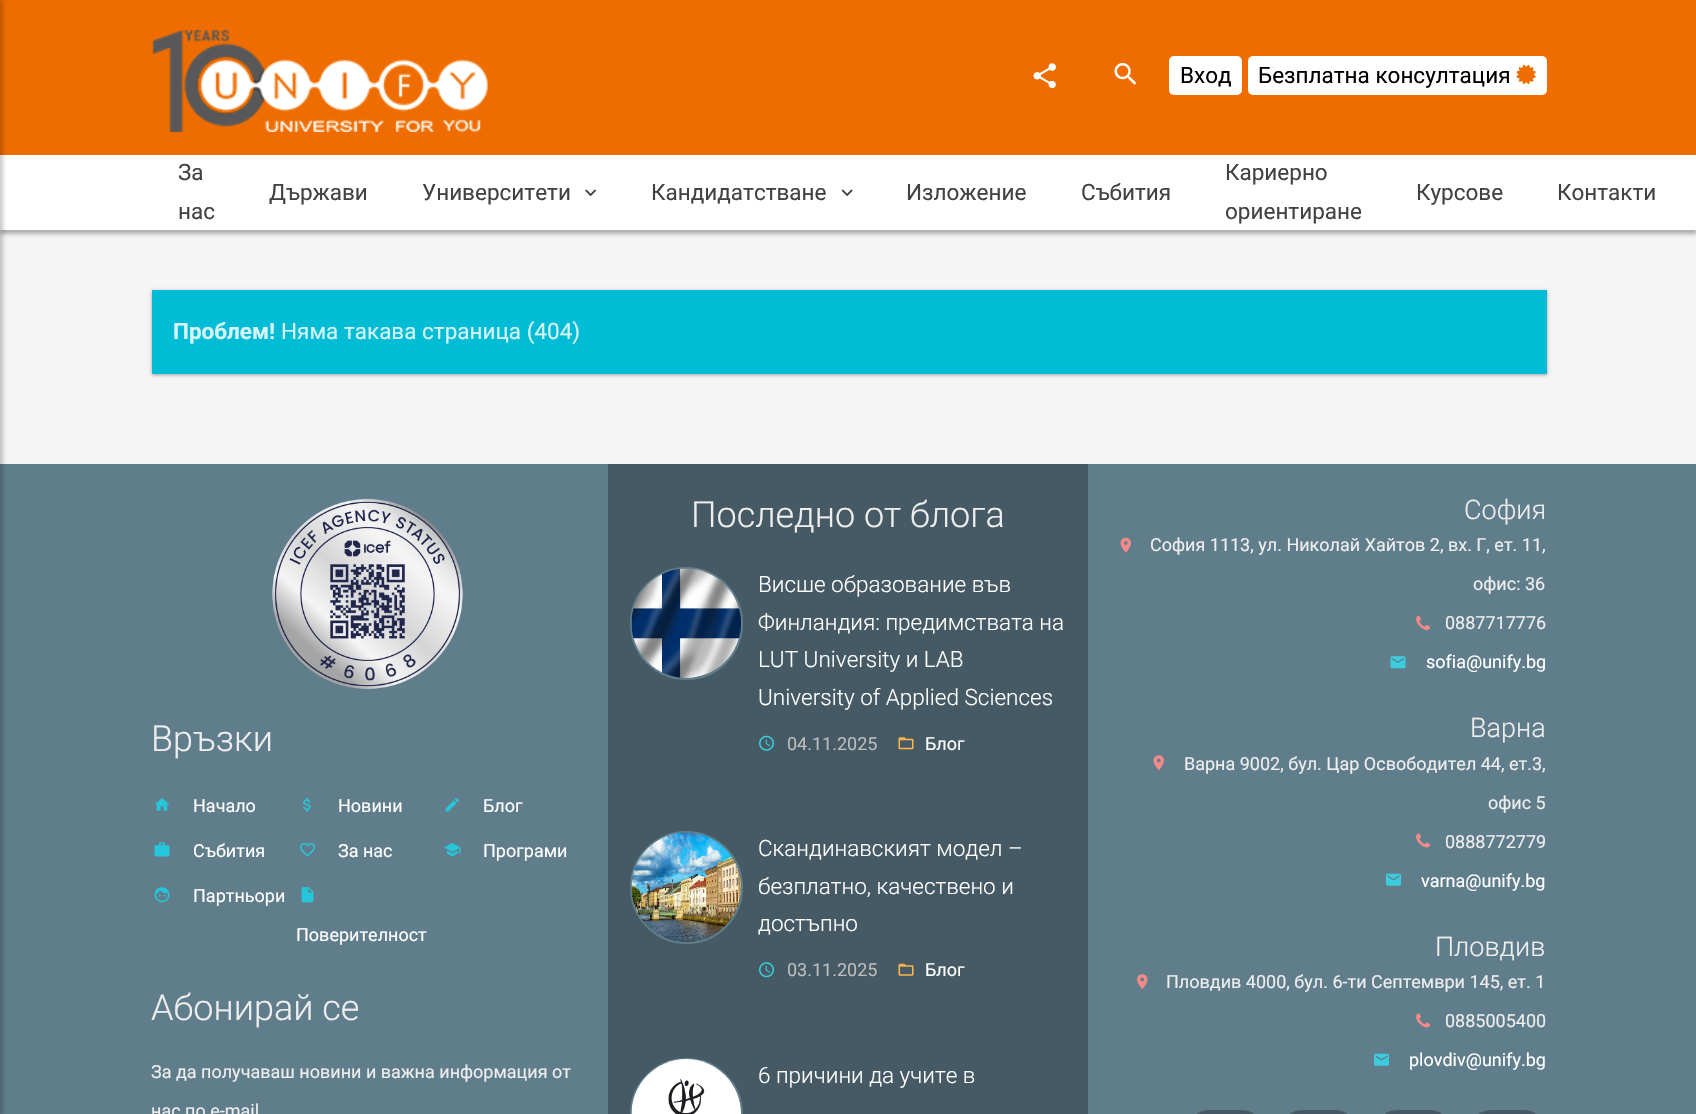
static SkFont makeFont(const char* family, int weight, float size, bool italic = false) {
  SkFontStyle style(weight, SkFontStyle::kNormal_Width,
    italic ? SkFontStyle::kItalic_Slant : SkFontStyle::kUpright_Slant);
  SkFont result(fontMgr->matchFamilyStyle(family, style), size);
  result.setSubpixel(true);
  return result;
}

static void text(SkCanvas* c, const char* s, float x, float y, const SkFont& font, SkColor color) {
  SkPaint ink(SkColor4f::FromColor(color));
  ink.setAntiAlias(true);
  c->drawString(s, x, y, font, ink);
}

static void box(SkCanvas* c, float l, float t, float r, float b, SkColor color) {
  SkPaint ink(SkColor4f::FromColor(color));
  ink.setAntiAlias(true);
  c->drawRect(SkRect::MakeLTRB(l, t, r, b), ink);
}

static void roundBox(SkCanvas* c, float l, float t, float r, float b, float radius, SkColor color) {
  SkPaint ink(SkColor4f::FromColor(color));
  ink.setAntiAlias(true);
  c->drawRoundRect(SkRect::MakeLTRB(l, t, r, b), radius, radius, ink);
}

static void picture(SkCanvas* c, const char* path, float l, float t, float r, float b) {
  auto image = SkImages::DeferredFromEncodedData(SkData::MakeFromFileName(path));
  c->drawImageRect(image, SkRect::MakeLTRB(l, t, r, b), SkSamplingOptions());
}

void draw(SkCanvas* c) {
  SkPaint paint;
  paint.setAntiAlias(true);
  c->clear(0xfff5f5f5);
  box(c, 0, 0, 1696, 155, 0xffef6c00);
  paint.setColor(0x4a000000);
  paint.setMaskFilter(SkMaskFilter::MakeBlur(kNormal_SkBlurStyle, 2));
  c->drawRect(SkRect::MakeLTRB(0, 159, 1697, 234), paint);
  paint.setMaskFilter(nullptr);
  box(c, 0, 155, 1696, 230, 0xffffffff);
  box(c, 0, 464, 1696, 1114, 0xff607d8b);
  paint.setColor(0x36000000);
  paint.setMaskFilter(SkMaskFilter::MakeBlur(kNormal_SkBlurStyle, 2));
  c->drawRect(SkRect::MakeLTRB(-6, 0, 3, 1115), paint);
  paint.setMaskFilter(nullptr);
  picture(c, "img_01.png", 152, 30, 488, 132);
  picture(c, "img_02.png", 1033, 63, 1056, 89);
  picture(c, "img_03.png", 1114, 63, 1137, 85);
  roundBox(c, 1169, 56, 1242, 95, 5, 0xffffffff);
  SkFont face1 = makeFont("Roboto", 400, 22.5f);
  text(c, "Вход", 1180, 83, face1, 0xff000000);
  roundBox(c, 1248, 56, 1547, 95, 5, 0xffffffff);
  text(c, "Безплатна консултация", 1258, 83, face1, 0xff000000);
  picture(c, "img_04.png", 1516, 64, 1536, 85);
  text(c, "За", 178, 180, face1, 0xff424242);
  text(c, "нас", 178, 219, face1, 0xff424242);
  text(c, "Държави", 269, 200, face1, 0xff424242);
  text(c, "Университети", 422, 200, face1, 0xff424242);
  picture(c, "img_05.png", 585, 189, 597, 197);
  text(c, "Кандидатстване", 651, 200, face1, 0xff424242);
  picture(c, "img_06.png", 841, 189, 853, 197);
  text(c, "Изложение", 906, 200, face1, 0xff424242);
  text(c, "Събития", 1081, 200, face1, 0xff424242);
  text(c, "Кариерно", 1225, 180, face1, 0xff424242);
  text(c, "ориентиране", 1225, 219, face1, 0xff424242);
  text(c, "Курсове", 1416, 200, face1, 0xff424242);
  text(c, "Контакти", 1557, 200, face1, 0xff424242);
  paint.setColor(0x3d000000);
  paint.setMaskFilter(SkMaskFilter::MakeBlur(kNormal_SkBlurStyle, 1.5f));
  c->drawRect(SkRect::MakeLTRB(152, 291, 1547, 375), paint);
  paint.setMaskFilter(nullptr);
  paint.setColor(0x1f000000);
  paint.setMaskFilter(SkMaskFilter::MakeBlur(kNormal_SkBlurStyle, 2));
  c->drawRect(SkRect::MakeLTRB(152, 291, 1547, 375), paint);
  paint.setMaskFilter(nullptr);
  box(c, 152, 290, 1547, 374, 0xff00bcd4);
  SkFont face2 = makeFont("Roboto", 700, 22.5f);
  text(c, "Проблем!", 173, 339, face2, 0xffd6f4f8);
  text(c, "Няма такава страница (404)", 281, 339, face1, 0xffd6f4f8);
  picture(c, "img_07.png", 272, 498, 463, 690);
  SkFont face3 = makeFont("Roboto", 300, 36);
  text(c, "Връзки", 151, 751, face3, 0xffeeeeee);
  picture(c, "img_08.png", 154, 798, 170, 811);
  SkFont face4 = makeFont("Roboto", 400, 18);
  text(c, "Начало", 193, 812, face4, 0xffffffff);
  picture(c, "img_09.png", 303, 798, 311, 812);
  text(c, "Новини", 338, 812, face4, 0xffffffff);
  picture(c, "img_10.png", 445, 798, 459, 812);
  text(c, "Блог", 483, 812, face4, 0xffffffff);
  picture(c, "img_11.png", 154, 842, 170, 857);
  text(c, "Събития", 193, 857, face4, 0xffffffff);
  picture(c, "img_12.png", 300, 843, 315, 857);
  text(c, "За нас", 338, 857, face4, 0xffffffff);
  picture(c, "img_13.png", 444, 843, 461, 857);
  text(c, "Програми", 483, 857, face4, 0xffffffff);
  picture(c, "img_14.png", 154, 887, 170, 903);
  text(c, "Партньори", 193, 902, face4, 0xffffffff);
  picture(c, "img_15.png", 301, 887, 314, 903);
  text(c, "Поверителност", 296, 941, face4, 0xffffffff);
  text(c, "Абонирай се", 151, 1020, face3, 0xffeeeeee);
  text(c, "За да получаваш новини и важна информация от", 151, 1078, face4, 0xffeeeeee);
  text(c, "нас по e-mail", 151, 1117, face4, 0xffeeeeee);
  box(c, 608, 464, 1088, 1114, 0xff455a64);
  text(c, "Последно от блога", 691, 527, face3, 0xffeeeeee);
  paint.setStyle(SkPaint::kStroke_Style);
  paint.setStrokeWidth(2);
  paint.setColor(0xff607d8b);
  c->drawCircle(686.5f, 623.5f, 55.5f, paint);
  picture(c, "img_16.png", 631, 568, 741, 678);
  SkFont face5 = makeFont("Roboto", 300, 22.5f);
  text(c, "Висше образование във", 758, 592, face5, 0xffffffff);
  text(c, "Финландия: предимствата на", 758, 630, face5, 0xffffffff);
  text(c, "LUT University и LAB", 758, 667, face5, 0xffffffff);
  text(c, "University of Applied Sciences", 758, 705, face5, 0xffffffff);
  picture(c, "img_17.png", 759, 735, 774, 751);
  text(c, "04.11.2025", 787, 750, face4, 0xffbdbdbd);
  picture(c, "img_18.png", 898, 737, 914, 750);
  text(c, "Блог", 925, 750, face4, 0xffffffff);
  c->drawCircle(686.5f, 887.5f, 55.5f, paint);
  picture(c, "img_19.png", 631, 832, 741, 942);
  text(c, "Скандинавският модел –", 758, 856, face5, 0xffffffff);
  text(c, "безплатно, качествено и", 758, 894, face5, 0xffffffff);
  text(c, "достъпно", 758, 931, face5, 0xffffffff);
  picture(c, "img_20.png", 759, 962, 774, 978);
  text(c, "03.11.2025", 787, 976, face4, 0xffbdbdbd);
  picture(c, "img_21.png", 898, 963, 914, 976);
  text(c, "Блог", 925, 976, face4, 0xffffffff);
  c->drawRoundRect(SkRect::MakeLTRB(631, 1059, 742, 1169), 55, 55, paint);
  picture(c, "img_22.png", 631, 1059, 741, 1114);
  text(c, "6 причини да учите в", 758, 1083, face5, 0xffffffff);
  SkFont face6 = makeFont("Roboto", 300, 27);
  text(c, "София", 1464, 519, face6, 0xffeeeeee);
  picture(c, "img_23.png", 1120, 537, 1131, 553);
  text(c, "София 1113, ул. Николай Хайтов 2, вх. Г, ет. 11,", 1150, 551, face4, 0xffeeeeee);
  text(c, "офис: 36", 1473, 590, face4, 0xffeeeeee);
  picture(c, "img_24.png", 1416, 615, 1431, 630);
  text(c, "0887717776", 1445, 629, face4, 0xffeeeeee);
  picture(c, "img_25.png", 1390, 656, 1406, 669);
  text(c, "sofia@unify.bg", 1426, 668, face4, 0xffffffff);
  text(c, "Варна", 1470, 737, face6, 0xffeeeeee);
  picture(c, "img_26.png", 1153, 755, 1164, 771);
  text(c, "Варна 9002, бул. Цар Освободител 44, ет.3,", 1184, 770, face4, 0xffeeeeee);
  text(c, "офис 5", 1488, 809, face4, 0xffeeeeee);
  picture(c, "img_27.png", 1416, 833, 1431, 848);
  text(c, "0888772779", 1445, 848, face4, 0xffeeeeee);
  picture(c, "img_28.png", 1386, 873, 1401, 886);
  text(c, "varna@unify.bg", 1421, 887, face4, 0xffffffff);
  text(c, "Пловдив", 1435, 956, face6, 0xffeeeeee);
  picture(c, "img_29.png", 1137, 974, 1148, 990);
  text(c, "Пловдив 4000, бул. 6-ти Септември 145, ет. 1", 1166, 988, face4, 0xffeeeeee);
  picture(c, "img_27.png", 1416, 1013, 1431, 1028);
  text(c, "0885005400", 1445, 1027, face4, 0xffeeeeee);
  picture(c, "img_28.png", 1374, 1053, 1389, 1066);
  text(c, "plovdiv@unify.bg", 1409, 1066, face4, 0xffffffff);
  roundBox(c, 1188, 1110, 1263, 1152, 37.5f, 0xff455a64);
  roundBox(c, 1281, 1110, 1356, 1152, 37.5f, 0xff455a64);
  roundBox(c, 1376, 1110, 1451, 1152, 37.5f, 0xff455a64);
  roundBox(c, 1470, 1110, 1545, 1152, 37.5f, 0xff455a64);
}
